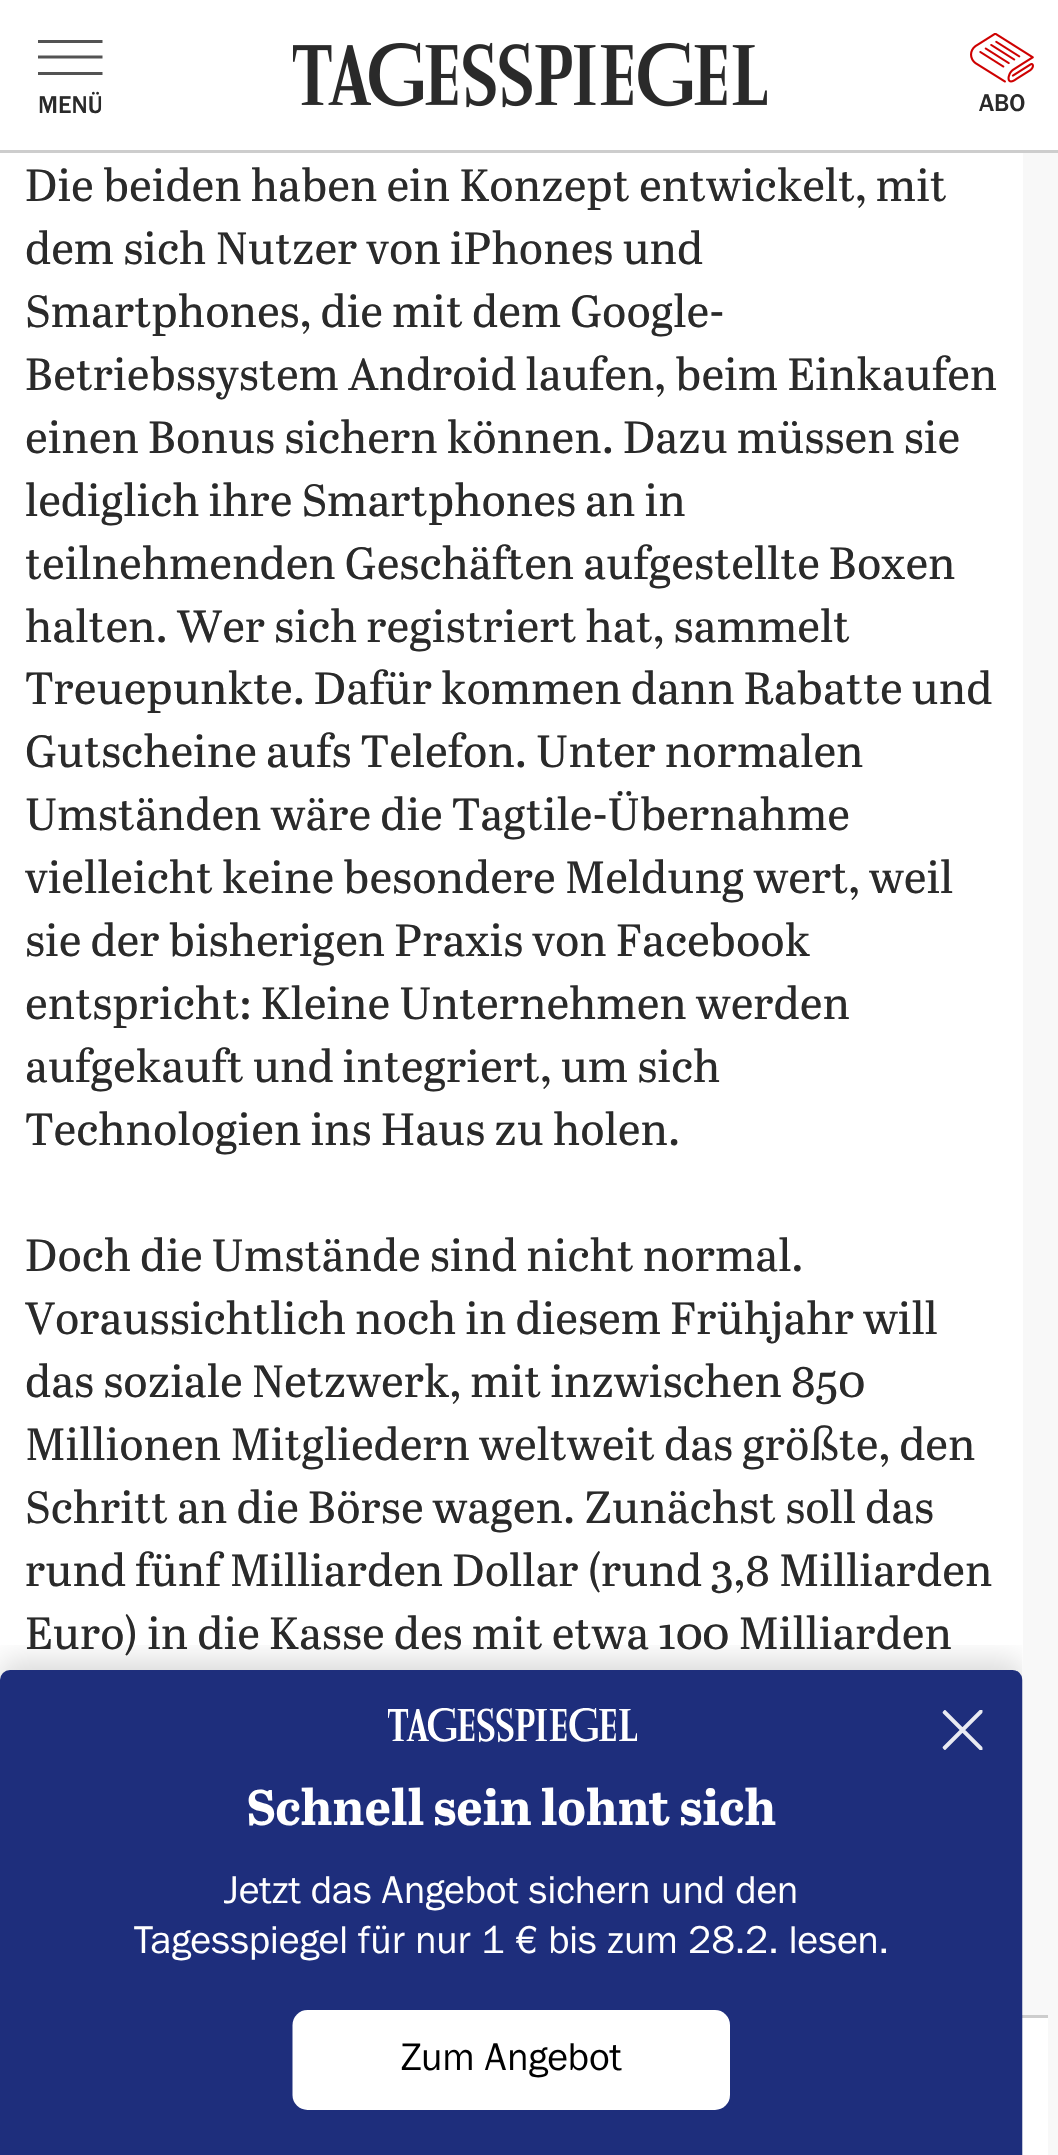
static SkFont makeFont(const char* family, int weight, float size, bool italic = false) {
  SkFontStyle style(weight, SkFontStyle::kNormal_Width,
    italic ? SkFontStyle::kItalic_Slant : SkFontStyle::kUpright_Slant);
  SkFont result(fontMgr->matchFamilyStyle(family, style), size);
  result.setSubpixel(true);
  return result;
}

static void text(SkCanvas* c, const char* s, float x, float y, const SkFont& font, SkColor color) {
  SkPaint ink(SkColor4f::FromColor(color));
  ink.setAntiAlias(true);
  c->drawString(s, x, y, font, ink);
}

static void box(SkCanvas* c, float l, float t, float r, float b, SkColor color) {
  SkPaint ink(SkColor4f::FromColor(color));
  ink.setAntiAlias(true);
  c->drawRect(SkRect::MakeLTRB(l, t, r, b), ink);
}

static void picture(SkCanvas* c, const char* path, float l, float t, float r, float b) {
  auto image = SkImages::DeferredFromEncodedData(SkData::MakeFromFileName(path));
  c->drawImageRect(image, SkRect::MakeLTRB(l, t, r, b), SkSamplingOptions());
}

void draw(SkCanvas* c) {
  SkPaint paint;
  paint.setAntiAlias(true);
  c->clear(0xfff8f8f8);
  box(c, 0, 0, 1058, 150, 0xffffffff);
  box(c, 0, 150, 1058, 153, 0xffcdcdcd);
  c->save();
  c->clipRect(SkRect::MakeLTRB(38, 38, 103, 78));
  paint.setStyle(SkPaint::kStroke_Style);
  paint.setStrokeWidth(3.2f);
  paint.setColor(0xff535353);
  c->drawPath(SkPathBuilder().moveTo(37.5f, 41.5f).lineTo(102.5f, 41.5f).moveTo(37.5f, 57).lineTo(102.5f, 57).moveTo(37.5f, 73.5f).lineTo(102.5f, 73.5f).detach(), paint);
  c->restore();
  SkFont face1 = makeFont("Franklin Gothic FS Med", 500, 25);
  text(c, "MENÜ", 38, 113, face1, 0xff2a2a2a);
  picture(c, "img_01.png", 293, 42, 767, 108);
  picture(c, "img_02.png", 970, 33, 1034, 83);
  text(c, "ABO", 979, 111, face1, 0xff2a2a2a);
  box(c, 0, 153, 1023, 2015, 0xffffffff);
  SkFont face2 = makeFont("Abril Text", 400, 45);
  text(c, "Die beiden haben ein Konzept entwickelt, mit", 25, 201, face2, 0xff2a2a2a);
  text(c, "dem sich Nutzer von iPhones und", 25, 264, face2, 0xff2a2a2a);
  text(c, "Smartphones, die mit dem Google-", 25, 327, face2, 0xff2a2a2a);
  text(c, "Betriebssystem Android laufen, beim Einkaufen", 25, 390, face2, 0xff2a2a2a);
  text(c, "einen Bonus sichern können. Dazu müssen sie", 25, 453, face2, 0xff2a2a2a);
  text(c, "lediglich ihre Smartphones an in", 25, 516, face2, 0xff2a2a2a);
  text(c, "teilnehmenden Geschäften aufgestellte Boxen", 25, 579, face2, 0xff2a2a2a);
  text(c, "halten. Wer sich registriert hat, sammelt", 25, 642, face2, 0xff2a2a2a);
  text(c, "Treuepunkte. Dafür kommen dann Rabatte und", 25, 704, face2, 0xff2a2a2a);
  text(c, "Gutscheine aufs Telefon. Unter normalen", 25, 767, face2, 0xff2a2a2a);
  text(c, "Umständen wäre die Tagtile-Übernahme", 25, 830, face2, 0xff2a2a2a);
  text(c, "vielleicht keine besondere Meldung wert, weil", 25, 893, face2, 0xff2a2a2a);
  text(c, "sie der bisherigen Praxis von Facebook", 25, 956, face2, 0xff2a2a2a);
  text(c, "entspricht: Kleine Unternehmen werden", 25, 1019, face2, 0xff2a2a2a);
  text(c, "aufgekauft und integriert, um sich", 25, 1082, face2, 0xff2a2a2a);
  text(c, "Technologien ins Haus zu holen.", 25, 1145, face2, 0xff2a2a2a);
  text(c, "Doch die Umstände sind nicht normal.", 25, 1271, face2, 0xff2a2a2a);
  text(c, "Voraussichtlich noch in diesem Frühjahr will", 25, 1334, face2, 0xff2a2a2a);
  text(c, "das soziale Netzwerk, mit inzwischen 850", 25, 1397, face2, 0xff2a2a2a);
  text(c, "Millionen Mitgliedern weltweit das größte, den", 25, 1460, face2, 0xff2a2a2a);
  text(c, "Schritt an die Börse wagen. Zunächst soll das", 25, 1523, face2, 0xff2a2a2a);
  text(c, "rund fünf Milliarden Dollar (rund 3,8 Milliarden", 25, 1586, face2, 0xff2a2a2a);
  text(c, "Euro) in die Kasse des mit etwa 100 Milliarden", 25, 1649, face2, 0xff2a2a2a);
  box(c, 1022, 2018, 1048, 2155, 0xffffffff);
  box(c, 1022, 2015, 1048, 2018, 0xffcdcdcd);
  picture(c, "img_03.png", 0, 1645, 1023, 2155);
}
